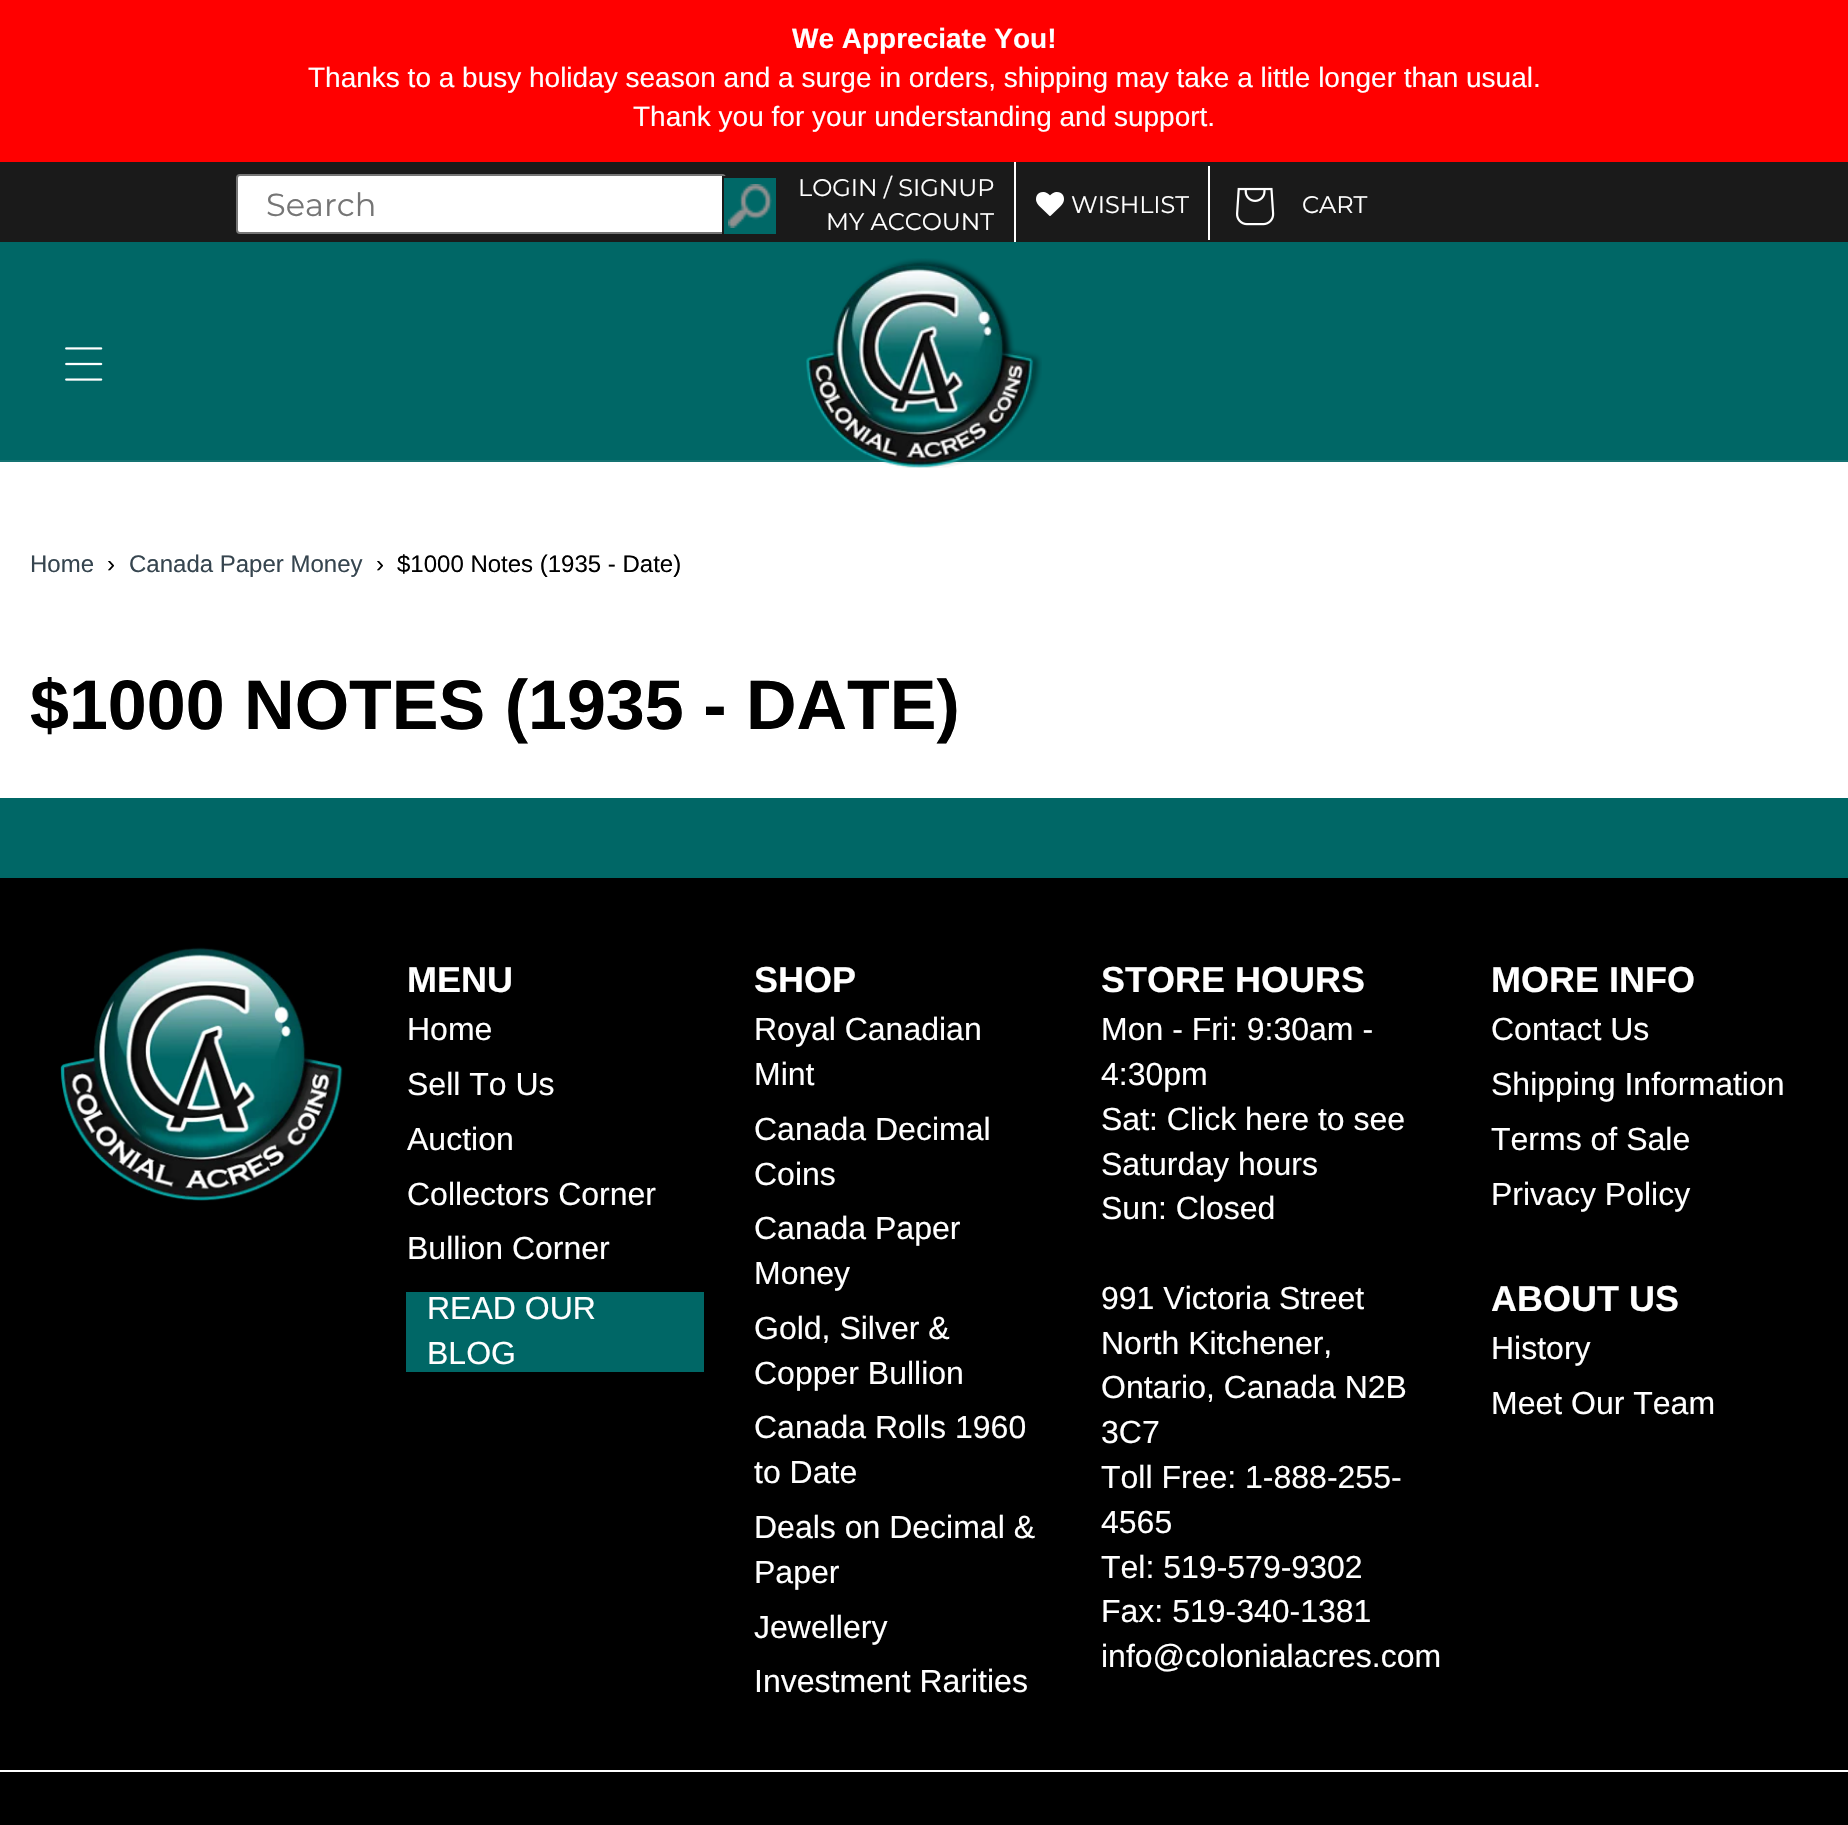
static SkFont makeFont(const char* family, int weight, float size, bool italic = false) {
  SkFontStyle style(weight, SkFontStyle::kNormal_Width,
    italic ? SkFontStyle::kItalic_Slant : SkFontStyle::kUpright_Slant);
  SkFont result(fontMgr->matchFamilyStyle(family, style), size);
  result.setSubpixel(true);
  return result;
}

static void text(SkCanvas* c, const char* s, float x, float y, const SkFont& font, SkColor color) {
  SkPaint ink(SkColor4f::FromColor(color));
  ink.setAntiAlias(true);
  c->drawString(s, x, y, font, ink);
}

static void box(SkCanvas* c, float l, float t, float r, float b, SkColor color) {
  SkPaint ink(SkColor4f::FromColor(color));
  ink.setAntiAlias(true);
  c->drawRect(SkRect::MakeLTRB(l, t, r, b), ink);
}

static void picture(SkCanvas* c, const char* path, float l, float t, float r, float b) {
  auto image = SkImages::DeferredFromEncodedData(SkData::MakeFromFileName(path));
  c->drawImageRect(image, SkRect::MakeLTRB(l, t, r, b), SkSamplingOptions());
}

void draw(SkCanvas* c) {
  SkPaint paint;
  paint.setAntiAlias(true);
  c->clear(0xffffffff);
  box(c, 0, 0, 1848, 162, 0xffff0000);
  SkFont face1 = makeFont("Liberation Sans", 700, 28);
  text(c, "We Appreciate You!", 792, 48, face1, 0xffffffff);
  SkFont face2 = makeFont("Liberation Sans", 400, 28);
  text(c, "Thanks to a busy holiday season and a surge in orders, shipping may take a little longer than usual.", 308, 87, face2, 0xffffffff);
  text(c, "Thank you for your understanding and support.", 633, 126, face2, 0xffffffff);
  box(c, 0, 162, 1848, 242, 0xff1a1a1a);
  paint.setColor(0xffffffff);
  c->drawRoundRect(SkRect::MakeLTRB(237, 175, 725, 233), 3, 3, paint);
  paint.setStyle(SkPaint::kStroke_Style);
  paint.setStrokeWidth(2);
  paint.setColor(0xff767676);
  c->drawRoundRect(SkRect::MakeLTRB(237, 175, 725, 233), 3, 3, paint);
  SkFont face3 = makeFont("Montserrat", 400, 32);
  text(c, "Search", 266, 216, face3, 0xff757575);
  paint.setStyle(SkPaint::kFill_Style);
  paint.setColor(0xff006867);
  c->drawRect(SkRect::MakeLTRB(723, 177, 777, 235), paint);
  paint.setStyle(SkPaint::kStroke_Style);
  paint.setColor(0xff1a1a1a);
  c->drawRect(SkRect::MakeLTRB(723, 177, 777, 235), paint);
  picture(c, "img_01.png", 728, 184, 772, 228);
  SkFont face4 = makeFont("Montserrat", 400, 24);
  text(c, "LOGIN / SIGNUP", 798, 196, face4, 0xffffffff);
  box(c, 1014, 162, 1016, 242, 0xffffffff);
  text(c, "MY ACCOUNT", 826, 230, face4, 0xffffffff);
  box(c, 1208, 166, 1210, 240, 0xffffffff);
  picture(c, "img_02.png", 1036, 192, 1064, 216);
  text(c, "WISHLIST", 1071, 213, face4, 0xffffffff);
  picture(c, "img_03.png", 1236, 187, 1275, 226);
  text(c, "CART", 1302, 213, face4, 0xffffffff);
  box(c, 0, 242, 1848, 460, 0xff006766);
  box(c, 0, 460, 1848, 462, 0xff147372);
  picture(c, "img_04.png", 65, 347, 103, 381);
  picture(c, "img_05.png", 806, 258, 1042, 468);
  SkFont face5 = makeFont("Liberation Sans", 400, 24);
  text(c, "Home", 30, 572, face5, 0xff36454f);
  text(c, "›", 107, 572, face5, 0xff000000);
  text(c, "Canada Paper Money", 129, 572, face5, 0xff36454f);
  text(c, "›", 376, 572, face5, 0xff000000);
  text(c, "$1000 Notes (1935 - Date)", 397, 572, face5, 0xff000000);
  SkFont face6 = makeFont("Liberation Sans", 700, 70);
  text(c, "$1000 NOTES (1935 - DATE)", 30, 729, face6, 0xff000000);
  box(c, 0, 878, 1848, 1825, 0xff000000);
  box(c, 0, 798, 1848, 878, 0xff006766);
  picture(c, "img_06.png", 60, 947, 343, 1201);
  SkFont face7 = makeFont("Liberation Sans", 700, 36);
  text(c, "MENU", 407, 992, face7, 0xffffffff);
  SkFont face8 = makeFont("Liberation Sans", 400, 32);
  text(c, "Home", 407, 1040, face8, 0xffffffff);
  text(c, "Sell To Us", 407, 1095, face8, 0xffffffff);
  text(c, "Auction", 407, 1150, face8, 0xffffffff);
  text(c, "Collectors Corner", 407, 1205, face8, 0xffffffff);
  text(c, "Bullion Corner", 407, 1259, face8, 0xffffffff);
  box(c, 406, 1292, 704, 1372, 0xff006766);
  text(c, "READ OUR", 427, 1319, face8, 0xffffffff);
  text(c, "BLOG", 427, 1364, face8, 0xffffffff);
  text(c, "SHOP", 754, 992, face7, 0xffffffff);
  text(c, "Royal Canadian", 754, 1040, face8, 0xffffffff);
  text(c, "Mint", 754, 1085, face8, 0xffffffff);
  text(c, "Canada Decimal", 754, 1140, face8, 0xffffffff);
  text(c, "Coins", 754, 1185, face8, 0xffffffff);
  text(c, "Canada Paper", 754, 1239, face8, 0xffffffff);
  text(c, "Money", 754, 1284, face8, 0xffffffff);
  text(c, "Gold, Silver &", 754, 1339, face8, 0xffffffff);
  text(c, "Copper Bullion", 754, 1384, face8, 0xffffffff);
  text(c, "Canada Rolls 1960", 754, 1438, face8, 0xffffffff);
  text(c, "to Date", 754, 1483, face8, 0xffffffff);
  text(c, "Deals on Decimal &", 754, 1538, face8, 0xffffffff);
  text(c, "Paper", 754, 1583, face8, 0xffffffff);
  text(c, "Jewellery", 754, 1638, face8, 0xffffffff);
  text(c, "Investment Rarities", 754, 1692, face8, 0xffffffff);
  text(c, "STORE HOURS", 1101, 992, face7, 0xffffffff);
  text(c, "Mon - Fri: 9:30am -", 1101, 1040, face8, 0xffffffff);
  text(c, "4:30pm", 1101, 1085, face8, 0xffffffff);
  text(c, "Sat: Click here to see", 1101, 1130, face8, 0xffffffff);
  text(c, "Saturday hours", 1101, 1175, face8, 0xffffffff);
  text(c, "Sun: Closed", 1101, 1219, face8, 0xffffffff);
  text(c, "991 Victoria Street", 1101, 1309, face8, 0xffffffff);
  text(c, "North Kitchener,", 1101, 1354, face8, 0xffffffff);
  text(c, "Ontario, Canada N2B", 1101, 1398, face8, 0xffffffff);
  text(c, "3C7", 1101, 1443, face8, 0xffffffff);
  text(c, "Toll Free: 1-888-255-", 1101, 1488, face8, 0xffffffff);
  text(c, "4565", 1101, 1533, face8, 0xffffffff);
  text(c, "Tel: 519-579-9302", 1101, 1578, face8, 0xffffffff);
  text(c, "Fax: 519-340-1381", 1101, 1622, face8, 0xffffffff);
  text(c, "info@colonialacres.com", 1101, 1667, face8, 0xffffffff);
  text(c, "MORE INFO", 1491, 992, face7, 0xffffffff);
  text(c, "Contact Us", 1491, 1040, face8, 0xffffffff);
  text(c, "Shipping Information", 1491, 1095, face8, 0xffffffff);
  text(c, "Terms of Sale", 1491, 1150, face8, 0xffffffff);
  text(c, "Privacy Policy", 1491, 1205, face8, 0xffffffff);
  text(c, "ABOUT US", 1491, 1311, face7, 0xffffffff);
  text(c, "History", 1491, 1359, face8, 0xffffffff);
  text(c, "Meet Our Team", 1491, 1414, face8, 0xffffffff);
  box(c, 0, 1770, 1848, 1772, 0xffffffff);
}
